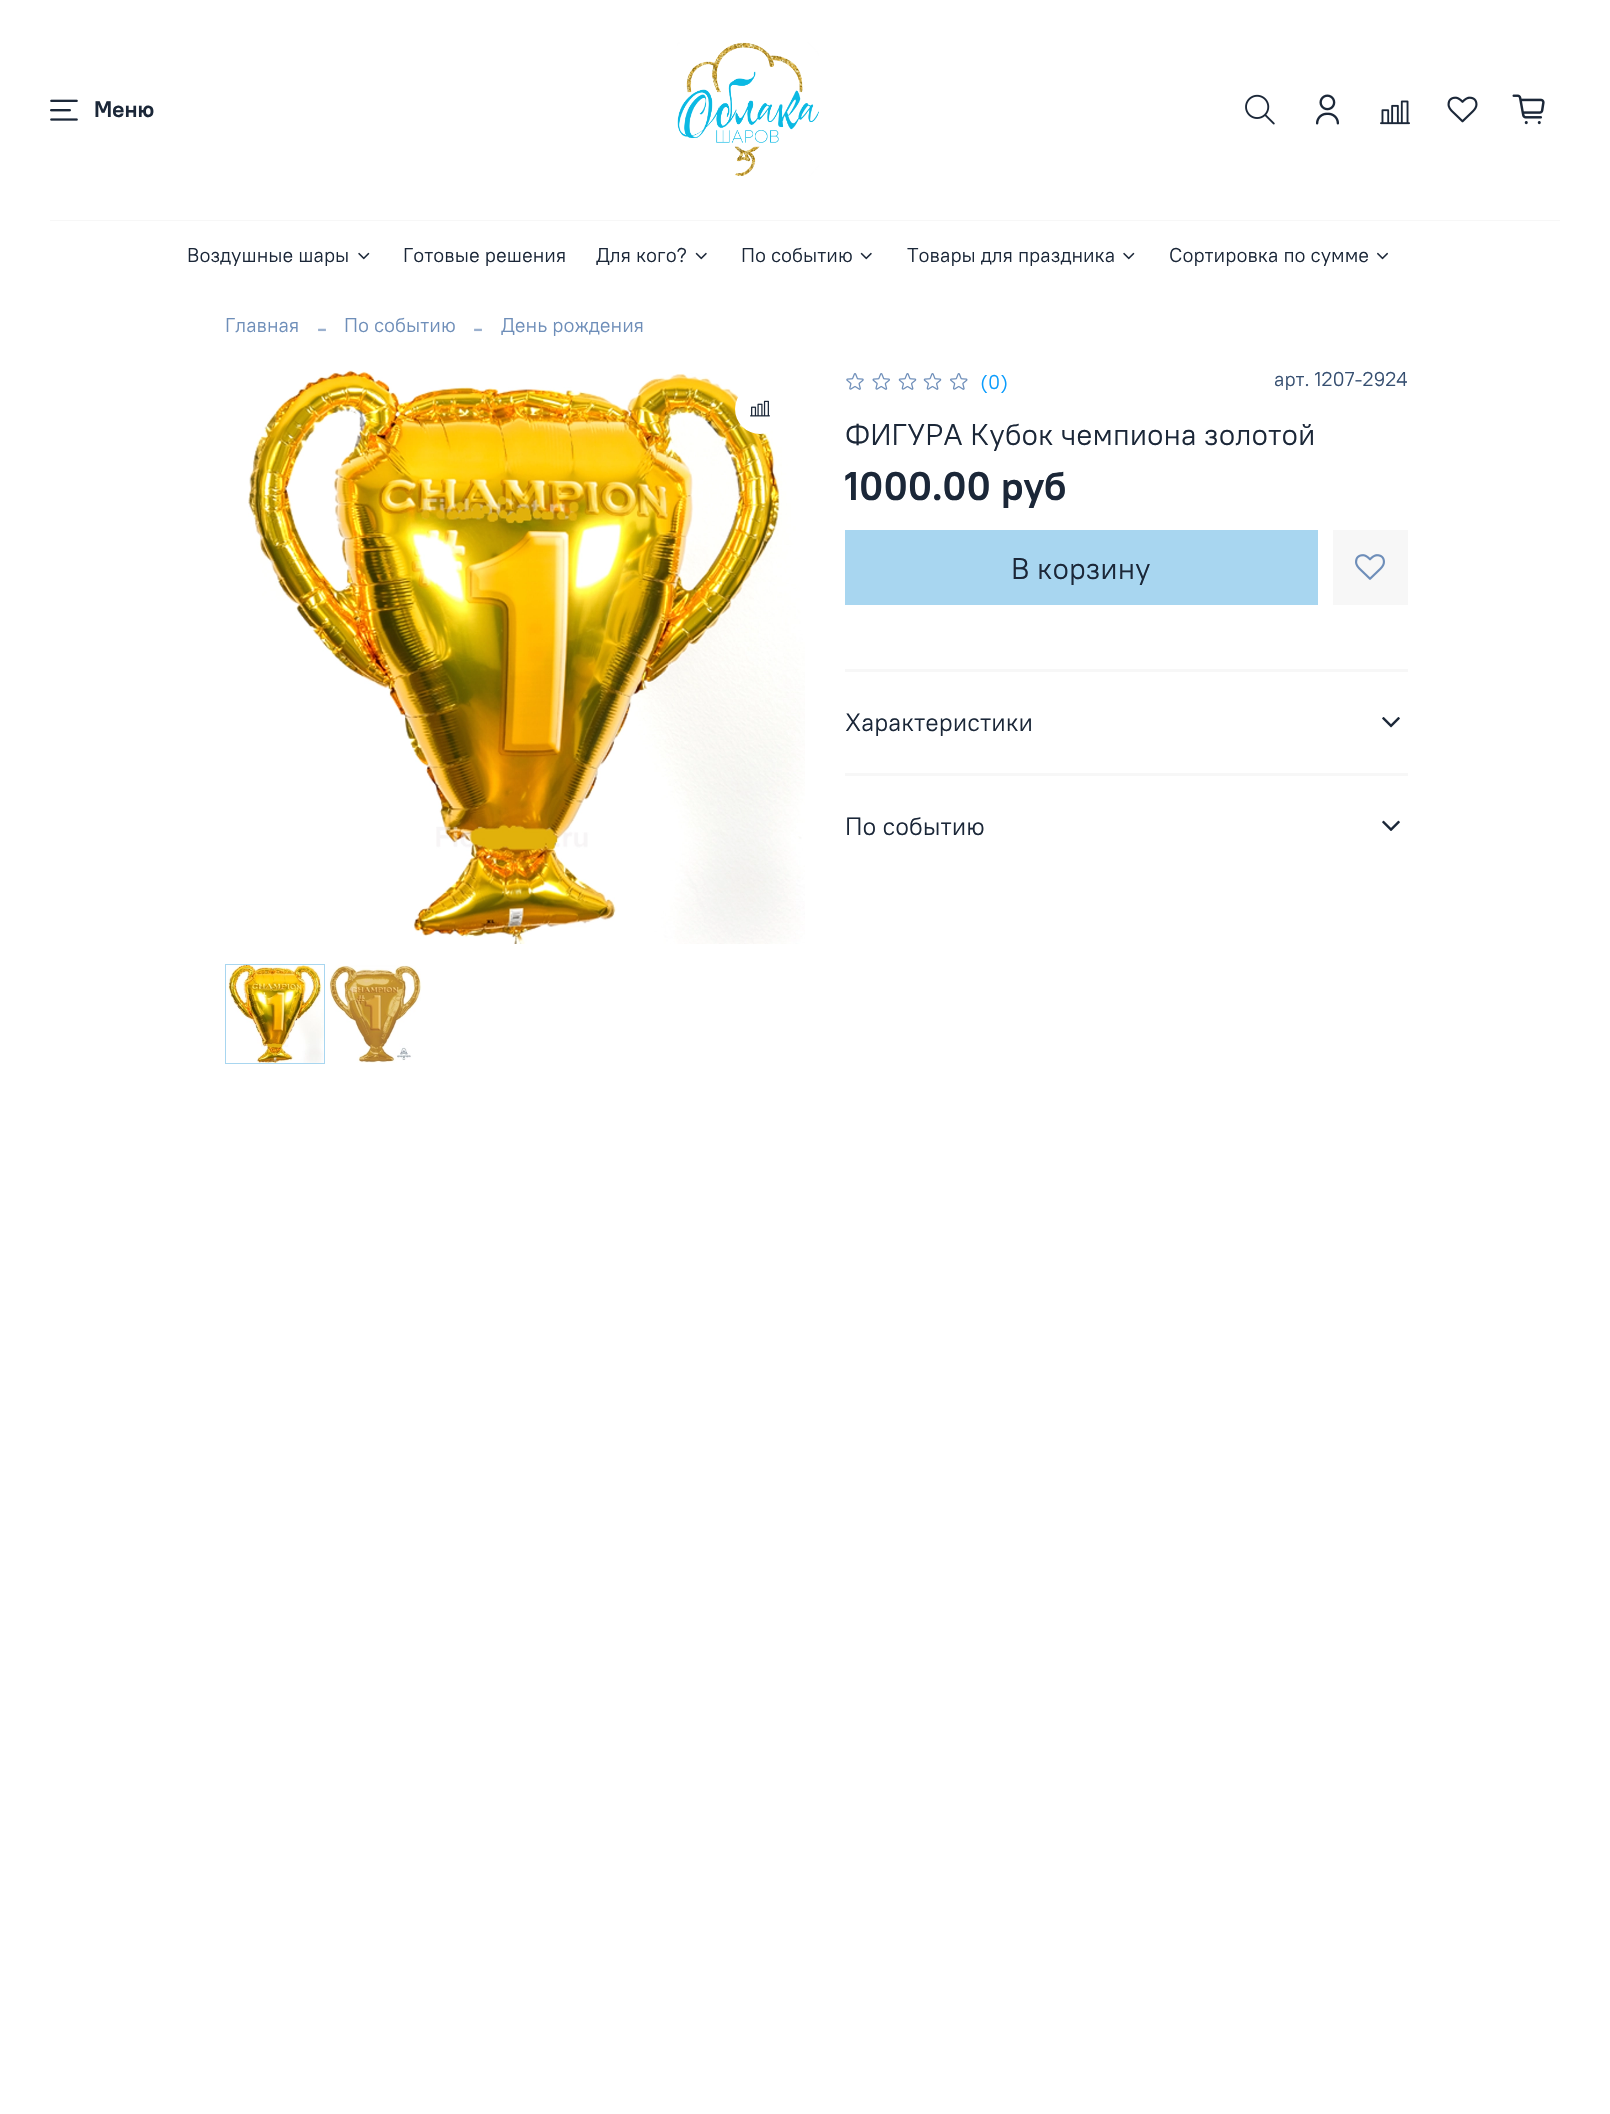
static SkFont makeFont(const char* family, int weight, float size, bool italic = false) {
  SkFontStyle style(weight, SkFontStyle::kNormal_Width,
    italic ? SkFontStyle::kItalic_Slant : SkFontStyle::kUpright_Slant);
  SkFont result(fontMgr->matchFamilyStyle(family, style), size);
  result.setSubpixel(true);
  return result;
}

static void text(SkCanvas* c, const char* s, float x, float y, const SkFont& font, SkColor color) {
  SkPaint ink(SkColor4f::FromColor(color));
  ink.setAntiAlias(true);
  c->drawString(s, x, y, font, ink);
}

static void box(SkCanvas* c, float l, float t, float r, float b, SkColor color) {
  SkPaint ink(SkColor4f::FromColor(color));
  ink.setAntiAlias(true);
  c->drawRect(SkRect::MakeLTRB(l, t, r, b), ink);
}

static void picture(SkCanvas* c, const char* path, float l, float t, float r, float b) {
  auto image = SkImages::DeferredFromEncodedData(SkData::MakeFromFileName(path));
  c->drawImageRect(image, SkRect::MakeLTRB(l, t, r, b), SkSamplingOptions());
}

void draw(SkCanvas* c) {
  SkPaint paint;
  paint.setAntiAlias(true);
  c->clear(0xffffffff);
  picture(c, "img_01.png", 50, 99, 78, 121);
  SkFont face1 = makeFont("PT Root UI", 700, 22.5f);
  text(c, "Меню", 94, 117, face1, 0xff1b2738);
  picture(c, "img_02.png", 677, 42, 819, 176);
  picture(c, "img_03.png", 1245, 94, 1275, 125);
  picture(c, "img_04.png", 1316, 94, 1339, 125);
  picture(c, "img_05.png", 1380, 100, 1410, 125);
  picture(c, "img_06.png", 1447, 96, 1478, 123);
  picture(c, "img_07.png", 1512, 94, 1545, 125);
  box(c, 50, 220, 1560, 221, 0xfff7f7f7);
  SkFont face2 = makeFont("PT Root UI", 400, 20);
  text(c, "Воздушные шары", 187, 262, face2, 0xff1b2738);
  picture(c, "img_08.png", 358, 252, 370, 260);
  text(c, "Готовые решения", 403, 262, face2, 0xff1b2738);
  text(c, "Для кого?", 596, 262, face2, 0xff1b2738);
  picture(c, "img_09.png", 695, 252, 707, 260);
  text(c, "По событию", 741, 262, face2, 0xff1b2738);
  picture(c, "img_09.png", 860, 252, 872, 260);
  text(c, "Товары для праздника", 907, 262, face2, 0xff1b2738);
  picture(c, "img_08.png", 1123, 252, 1135, 260);
  text(c, "Сортировка по сумме", 1169, 262, face2, 0xff1b2738);
  picture(c, "img_10.png", 1377, 252, 1388, 260);
  text(c, "Главная", 225, 332, face2, 0xff6e8eb9);
  SkFont face3 = makeFont("Liberation Serif", 400, 30);
  text(c, "-", 317, 337, face3, 0xff9ab0ce);
  text(c, "По событию", 344, 332, face2, 0xff6e8eb9);
  text(c, "-", 473, 337, face3, 0xff9ab0ce);
  text(c, "День рождения", 501, 332, face2, 0xff6e8eb9);
  picture(c, "img_11.png", 248, 370, 805, 944);
  picture(c, "img_12.png", 228, 965, 324, 1063);
  paint.setStyle(SkPaint::kStroke_Style);
  paint.setStrokeWidth(1);
  paint.setColor(0xffa8d6f0);
  c->drawRect(SkRect::MakeLTRB(225.5f, 964.5f, 324.5f, 1063.5f), paint);
  picture(c, "img_13.png", 329, 965, 422, 1063);
  paint.setStyle(SkPaint::kFill_Style);
  paint.setColor(0xffffffff);
  c->drawCircle(760, 409, 25, paint);
  picture(c, "img_14.png", 750, 400, 770, 417);
  picture(c, "img_15.png", 846, 373, 864, 390);
  picture(c, "img_16.png", 872, 373, 890, 390);
  picture(c, "img_17.png", 898, 373, 917, 390);
  picture(c, "img_17.png", 923, 373, 942, 390);
  picture(c, "img_18.png", 950, 373, 968, 390);
  text(c, "(0)", 980, 389, face2, 0xff0a9cfd);
  text(c, "арт. 1207-2924", 1274, 386, face2, 0xff364f71);
  SkFont face4 = makeFont("PT Root UI", 400, 30);
  text(c, "ФИГУРА Кубок чемпиона золотой", 845, 445, face4, 0xff1b2738);
  SkFont face5 = makeFont("PT Root UI", 700, 40);
  text(c, "1000.00 руб", 845, 500, face5, 0xff1b2738);
  box(c, 845, 530, 1318, 605, 0xffa8d6f0);
  text(c, "В корзину", 1011, 579, face4, 0xff1b2738);
  box(c, 1333, 530, 1408, 605, 0xfff7f7f7);
  picture(c, "img_19.png", 1355, 554, 1385, 580);
  box(c, 845, 669, 1408, 672, 0xfff7f7f7);
  SkFont face6 = makeFont("PT Root UI", 400, 25);
  text(c, "Характеристики", 845, 731, face6, 0xff1b2738);
  picture(c, "img_20.png", 1382, 717, 1400, 728);
  box(c, 845, 773, 1408, 776, 0xfff7f7f7);
  text(c, "По событию", 845, 835, face6, 0xff1b2738);
  picture(c, "img_21.png", 1382, 820, 1400, 831);
}
